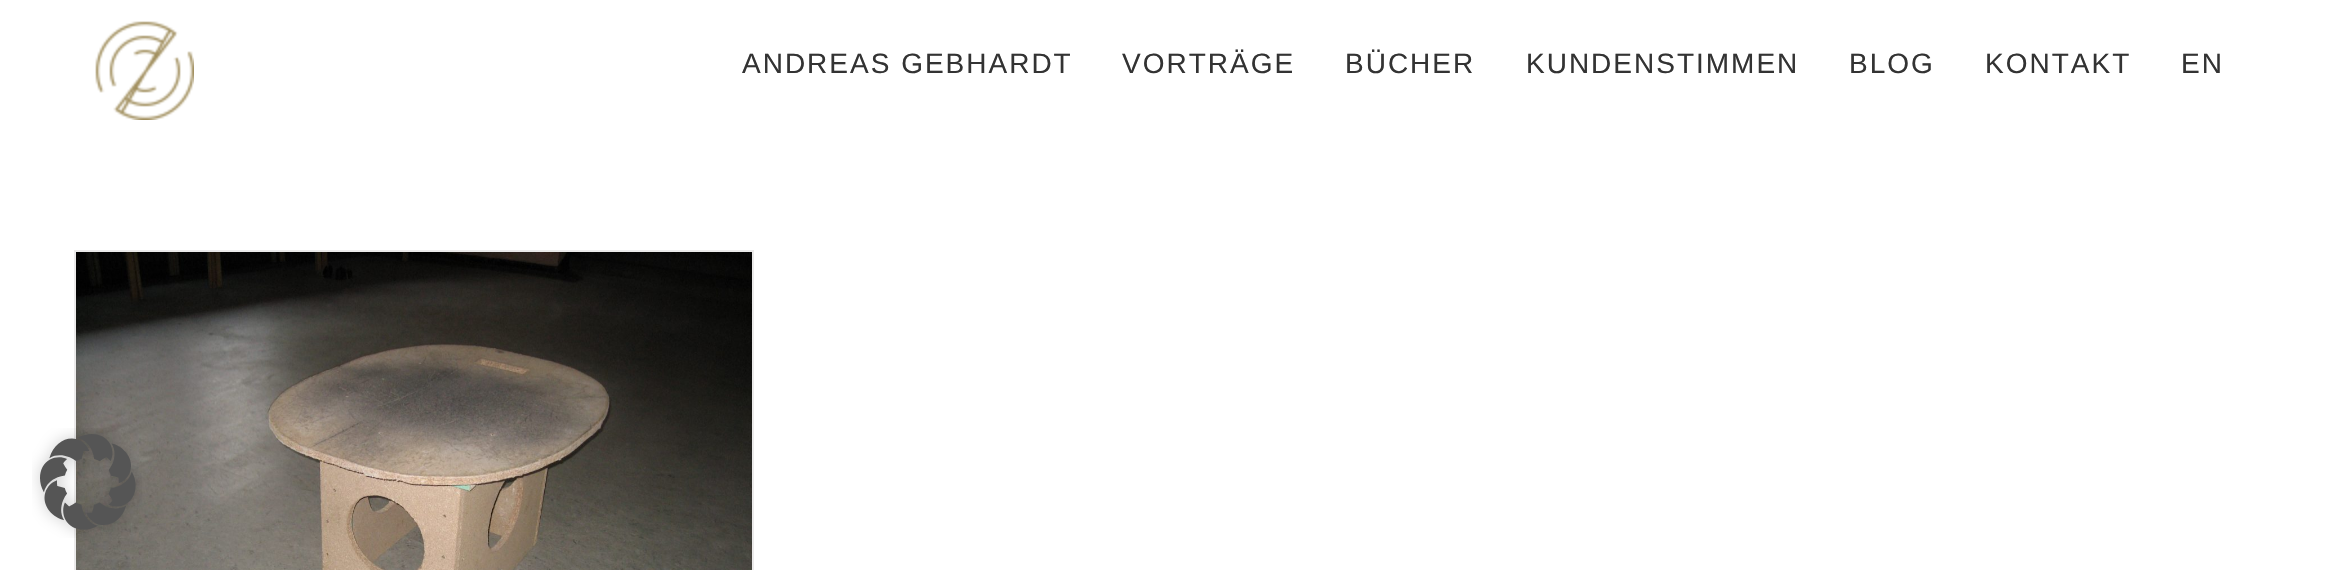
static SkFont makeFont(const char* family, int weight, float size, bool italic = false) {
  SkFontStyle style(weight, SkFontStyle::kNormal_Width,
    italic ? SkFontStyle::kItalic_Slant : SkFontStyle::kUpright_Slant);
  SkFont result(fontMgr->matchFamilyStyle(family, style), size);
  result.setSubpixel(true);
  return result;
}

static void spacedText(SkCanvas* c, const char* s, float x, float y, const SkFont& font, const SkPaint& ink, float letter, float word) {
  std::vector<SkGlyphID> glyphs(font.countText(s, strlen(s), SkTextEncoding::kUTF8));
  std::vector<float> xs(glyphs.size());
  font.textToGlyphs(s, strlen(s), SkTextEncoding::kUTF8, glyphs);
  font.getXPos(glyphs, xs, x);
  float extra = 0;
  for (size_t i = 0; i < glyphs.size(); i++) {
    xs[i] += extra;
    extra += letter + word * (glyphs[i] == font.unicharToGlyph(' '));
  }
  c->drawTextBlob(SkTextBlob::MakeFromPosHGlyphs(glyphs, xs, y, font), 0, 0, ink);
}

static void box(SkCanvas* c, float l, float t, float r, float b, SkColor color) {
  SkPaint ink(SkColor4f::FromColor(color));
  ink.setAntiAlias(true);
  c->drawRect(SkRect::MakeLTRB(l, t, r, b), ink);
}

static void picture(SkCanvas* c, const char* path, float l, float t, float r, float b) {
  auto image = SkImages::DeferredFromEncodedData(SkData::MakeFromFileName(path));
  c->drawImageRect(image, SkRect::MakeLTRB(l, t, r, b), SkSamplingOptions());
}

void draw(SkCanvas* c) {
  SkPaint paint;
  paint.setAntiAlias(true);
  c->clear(0xffffffff);
  picture(c, "img_01.png", 95, 21, 194, 120);
  SkFont face1 = makeFont("Liberation Sans", 400, 28);
  paint.setColor(0xff333333);
  spacedText(c, "ANDREAS GEBHARDT", 742, 73, face1, paint, 2, 0);
  spacedText(c, "VORTRÄGE", 1122, 73, face1, paint, 2, 0);
  spacedText(c, "BÜCHER", 1345, 73, face1, paint, 2, 0);
  spacedText(c, "KUNDENSTIMMEN", 1526, 73, face1, paint, 2, 0);
  spacedText(c, "BLOG", 1849, 73, face1, paint, 2, 0);
  spacedText(c, "KONTAKT", 1985, 73, face1, paint, 2, 0);
  spacedText(c, "EN", 2181, 73, face1, paint, 2, 0);
  box(c, 74, 250, 754, 252, 0xffebeaea);
  box(c, 752, 250, 754, 570, 0xffebeaea);
  box(c, 74, 250, 76, 570, 0xffebeaea);
  picture(c, "img_02.png", 76, 252, 752, 570);
  picture(c, "img_03.png", 32, 428, 142, 538);
}
